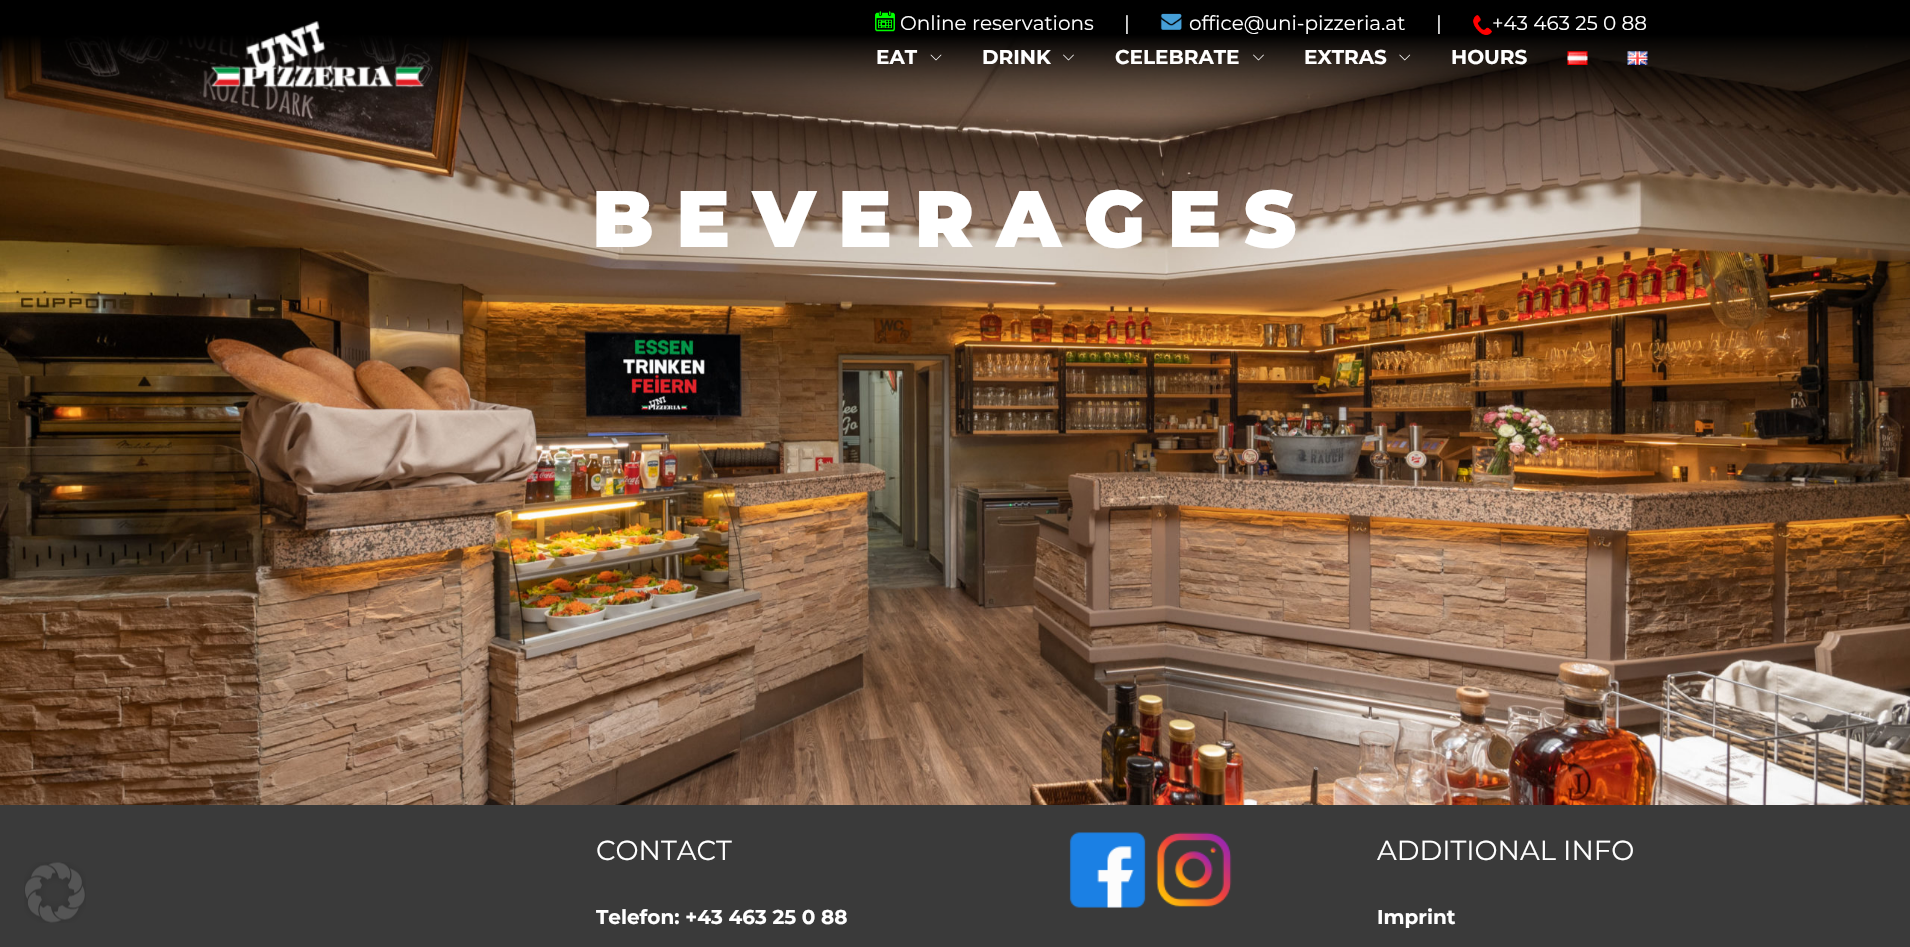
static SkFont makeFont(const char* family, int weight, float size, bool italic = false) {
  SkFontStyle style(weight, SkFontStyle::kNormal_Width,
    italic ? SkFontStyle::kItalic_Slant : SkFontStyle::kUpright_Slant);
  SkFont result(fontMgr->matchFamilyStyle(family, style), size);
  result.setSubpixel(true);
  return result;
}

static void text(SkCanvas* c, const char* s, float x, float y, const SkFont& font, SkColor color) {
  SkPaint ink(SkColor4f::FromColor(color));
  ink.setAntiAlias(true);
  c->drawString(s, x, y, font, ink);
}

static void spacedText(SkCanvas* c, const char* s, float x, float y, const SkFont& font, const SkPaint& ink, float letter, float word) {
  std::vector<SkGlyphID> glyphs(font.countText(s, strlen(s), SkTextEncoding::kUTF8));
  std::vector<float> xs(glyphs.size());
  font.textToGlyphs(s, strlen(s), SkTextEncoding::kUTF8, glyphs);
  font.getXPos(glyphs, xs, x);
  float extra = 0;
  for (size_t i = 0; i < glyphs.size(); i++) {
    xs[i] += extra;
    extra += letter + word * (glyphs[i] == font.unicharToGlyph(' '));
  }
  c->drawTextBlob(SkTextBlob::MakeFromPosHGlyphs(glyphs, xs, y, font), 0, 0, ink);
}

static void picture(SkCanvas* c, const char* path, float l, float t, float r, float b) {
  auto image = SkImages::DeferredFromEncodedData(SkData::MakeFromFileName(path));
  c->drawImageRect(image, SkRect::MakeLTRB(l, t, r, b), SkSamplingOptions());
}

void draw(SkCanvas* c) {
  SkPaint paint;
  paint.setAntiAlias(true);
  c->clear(0xff3a3a3a);
  picture(c, "img_01.png", 24, 862, 86, 923);
  picture(c, "img_12.png", 0, 0, 1910, 805);
  picture(c, "img_02.png", 211, 21, 424, 89);
  picture(c, "img_03.png", 875, 11, 895, 32);
  SkFont face1 = makeFont("Montserrat", 400, 20);
  text(c, "Online reservations", 900, 30, face1, 0xffffffff);
  text(c, "|", 1124, 30, face1, 0xffffffff);
  picture(c, "img_04.png", 1160, 13, 1182, 30);
  text(c, "office@uni-pizzeria.at", 1189, 30, face1, 0xffffffff);
  text(c, "|", 1436, 30, face1, 0xffffffff);
  picture(c, "img_05.png", 1473, 15, 1492, 35);
  text(c, "+43 463 25 0 88", 1492, 30, face1, 0xffffffff);
  SkFont face2 = makeFont("Montserrat", 700, 20);
  text(c, "EAT", 876, 64, face2, 0xffffffff);
  picture(c, "img_06.png", 930, 54, 942, 61);
  text(c, "DRINK", 982, 64, face2, 0xffffffff);
  picture(c, "img_07.png", 1063, 54, 1074, 61);
  text(c, "CELEBRATE", 1115, 64, face2, 0xffffffff);
  picture(c, "img_08.png", 1253, 54, 1264, 61);
  text(c, "EXTRAS", 1304, 64, face2, 0xffffffff);
  picture(c, "img_09.png", 1399, 54, 1411, 61);
  text(c, "HOURS", 1451, 64, face2, 0xffffffff);
  picture(c, "img_10.png", 1567, 51, 1588, 65);
  picture(c, "img_11.png", 1627, 51, 1648, 65);
  SkFont face3 = makeFont("Montserrat", 900, 80);
  paint.setColor(0xffffffff);
  spacedText(c, "BEVERAGES", 592, 247, face3, paint, 22.5f, 0);
  SkFont face4 = makeFont("Montserrat", 400, 27.5f);
  text(c, "CONTACT", 596, 860, face4, 0xffffffff);
  text(c, "Telefon: +43 463 25 0 88", 596, 924, face2, 0xffffffff);
  picture(c, "img_13.png", 1069, 832, 1146, 908);
  picture(c, "img_14.png", 1156, 832, 1232, 907);
  text(c, "ADDITIONAL INFO", 1377, 860, face4, 0xffffffff);
  text(c, "Imprint", 1377, 924, face2, 0xffffffff);
}
